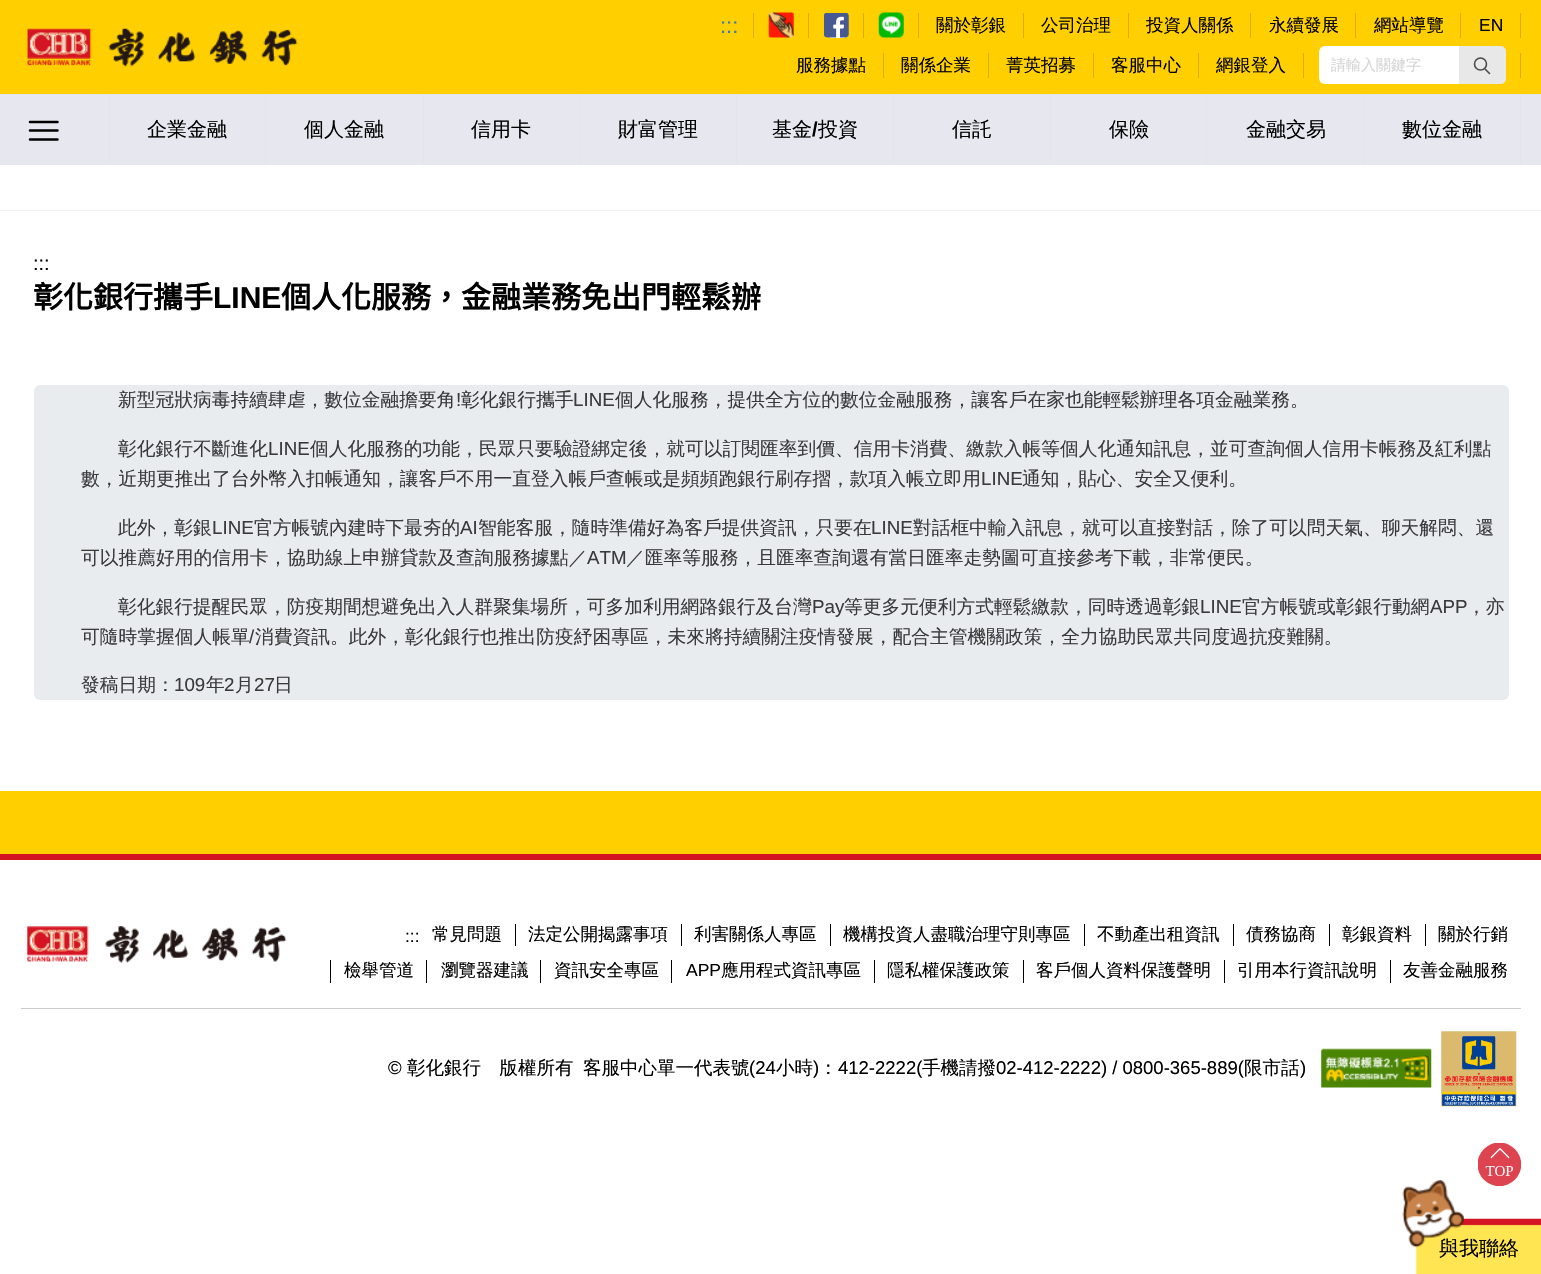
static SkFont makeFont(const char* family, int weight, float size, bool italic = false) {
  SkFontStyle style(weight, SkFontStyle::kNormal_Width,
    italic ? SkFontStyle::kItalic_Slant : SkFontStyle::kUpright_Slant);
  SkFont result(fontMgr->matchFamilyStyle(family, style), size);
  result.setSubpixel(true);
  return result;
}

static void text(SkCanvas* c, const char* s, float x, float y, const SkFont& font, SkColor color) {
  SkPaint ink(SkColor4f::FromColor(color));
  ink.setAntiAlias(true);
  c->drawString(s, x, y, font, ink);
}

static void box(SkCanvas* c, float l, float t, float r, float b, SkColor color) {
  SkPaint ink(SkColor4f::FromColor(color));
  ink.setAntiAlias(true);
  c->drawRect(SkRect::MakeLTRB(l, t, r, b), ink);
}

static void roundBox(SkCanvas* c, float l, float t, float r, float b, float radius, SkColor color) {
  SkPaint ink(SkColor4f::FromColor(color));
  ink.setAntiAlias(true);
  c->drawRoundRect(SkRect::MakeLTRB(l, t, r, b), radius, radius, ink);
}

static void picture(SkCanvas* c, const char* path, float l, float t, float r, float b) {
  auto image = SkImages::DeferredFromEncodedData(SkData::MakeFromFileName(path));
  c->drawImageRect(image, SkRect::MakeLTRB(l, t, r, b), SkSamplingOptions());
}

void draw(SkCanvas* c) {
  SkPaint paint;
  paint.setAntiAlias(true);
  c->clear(0xffffffff);
  box(c, 0, 0, 1541, 94, 0xffffcf00);
  picture(c, "img_01.png", 27, 28, 298, 67);
  SkFont face1 = makeFont("Liberation Sans", 400, 22);
  text(c, ":::", 720, 33, face1, 0xff337ab7);
  box(c, 753, 13, 754, 38, 0xffd8af00);
  picture(c, "img_02.png", 768, 12, 794, 38);
  box(c, 808, 13, 809, 38, 0xffd8af00);
  picture(c, "img_03.png", 824, 13, 849, 38);
  box(c, 863, 13, 864, 38, 0xffd8af00);
  picture(c, "img_04.png", 878, 12, 904, 38);
  box(c, 918, 13, 919, 38, 0xffd8af00);
  SkFont face2 = makeFont("WenQuanYi Zen Hei", 500, 17.5f);
  text(c, "關於彰銀", 936, 31, face2, 0xff000000);
  box(c, 1023, 13, 1024, 38, 0xffd8af00);
  text(c, "公司治理", 1041, 31, face2, 0xff000000);
  box(c, 1128, 13, 1129, 38, 0xffd8af00);
  text(c, "投資人關係", 1146, 31, face2, 0xff000000);
  box(c, 1250, 13, 1251, 38, 0xffd8af00);
  text(c, "永續發展", 1269, 31, face2, 0xff000000);
  box(c, 1355, 13, 1356, 38, 0xffd8af00);
  text(c, "網站導覽", 1374, 31, face2, 0xff000000);
  box(c, 1460, 13, 1461, 38, 0xffd8af00);
  SkFont face3 = makeFont("Liberation Sans", 400, 17.5f);
  text(c, "EN", 1479, 31, face3, 0xff000000);
  box(c, 1520, 13, 1521, 38, 0xffd8af00);
  text(c, "服務據點", 796, 71, face2, 0xff000000);
  box(c, 883, 53, 884, 78, 0xffd8af00);
  text(c, "關係企業", 901, 71, face2, 0xff000000);
  box(c, 988, 53, 989, 78, 0xffd8af00);
  text(c, "菁英招募", 1006, 71, face2, 0xff000000);
  box(c, 1093, 53, 1094, 78, 0xffd8af00);
  text(c, "客服中心", 1111, 71, face2, 0xff000000);
  box(c, 1198, 53, 1199, 78, 0xffd8af00);
  text(c, "網銀登入", 1216, 71, face2, 0xff000000);
  box(c, 1303, 53, 1304, 78, 0xffd8af00);
  roundBox(c, 1319, 46, 1506, 84, 6, 0xffffffff);
  SkFont face4 = makeFont("WenQuanYi Zen Hei", 500, 15);
  text(c, "請輸入關鍵字", 1331, 70, face4, 0xffd6d6d6);
  paint.setColor(0xffe8e8e8);
  c->drawPath(SkPathBuilder().moveTo(1459, 46).lineTo(1500, 46).cubicTo(1503.5f, 46, 1506, 48.5f, 1506, 52).lineTo(1506, 78).cubicTo(1506, 81.5f, 1503.5f, 84, 1500, 84).lineTo(1459, 84).close().detach(), paint);
  paint.setStyle(SkPaint::kStroke_Style);
  paint.setStrokeWidth(1.6f);
  paint.setColor(0xff4a4a4a);
  c->drawCircle(1480.5f, 64, 6, paint);
  paint.setStrokeCap(SkPaint::kRound_Cap);
  c->drawPath(SkPathBuilder().moveTo(1485, 69).lineTo(1489.5f, 73.5f).detach(), paint);
  box(c, 1520, 53, 1521, 78, 0xffd8af00);
  box(c, 0, 95, 1541, 165, 0xffe7e8ef);
  box(c, 0, 94, 1541, 95, 0xffe5e5e5);
  paint.setStrokeWidth(2.5f);
  paint.setStrokeJoin(SkPaint::kRound_Join);
  paint.setColor(0xff000000);
  c->drawPath(SkPathBuilder().moveTo(30, 122).lineTo(57.5f, 122).moveTo(30, 130.5f).lineTo(57.5f, 130.5f).moveTo(30, 139.5f).lineTo(57.5f, 139.5f).detach(), paint);
  box(c, 109, 95, 110, 165, 0xffe5e5e5);
  SkFont face5 = makeFont("WenQuanYi Zen Hei", 500, 20);
  text(c, "企業金融", 147, 136, face5, 0xff000000);
  box(c, 265, 95, 266, 165, 0xffe5e5e5);
  text(c, "個人金融", 304, 136, face5, 0xff000000);
  box(c, 423, 95, 424, 165, 0xffe5e5e5);
  text(c, "信用卡", 471, 136, face5, 0xff000000);
  box(c, 579, 95, 580, 165, 0xffe5e5e5);
  text(c, "財富管理", 618, 136, face5, 0xff000000);
  box(c, 736, 95, 737, 165, 0xffe5e5e5);
  text(c, "基金", 772, 136, face5, 0xff000000);
  SkFont face6 = makeFont("Liberation Sans", 700, 20);
  text(c, "/", 812, 136, face6, 0xff000000);
  text(c, "投資", 818, 136, face5, 0xff000000);
  box(c, 893, 95, 894, 165, 0xffe5e5e5);
  text(c, "信託", 952, 136, face5, 0xff000000);
  box(c, 1050, 95, 1051, 165, 0xffe5e5e5);
  text(c, "保險", 1109, 136, face5, 0xff000000);
  box(c, 1206, 95, 1207, 165, 0xffe5e5e5);
  text(c, "金融交易", 1246, 136, face5, 0xff000000);
  box(c, 1520, 95, 1521, 165, 0xffe5e5e5);
  box(c, 1364, 95, 1365, 165, 0xffe5e5e5);
  text(c, "數位金融", 1402, 136, face5, 0xff000000);
  box(c, 0, 210, 1541, 211, 0xfff2f2f2);
  SkFont face7 = makeFont("Liberation Sans", 400, 20);
  text(c, ":::", 33, 270, face7, 0xff000000);
  SkFont face8 = makeFont("Noto Sans CJK TC", 700, 30);
  text(c, "彰化銀行攜手", 33, 308, face8, 0xff000000);
  SkFont face9 = makeFont("Liberation Sans", 700, 30);
  text(c, "LINE", 213, 308, face9, 0xff000000);
  text(c, "個人化服務，金融業務免出門輕鬆辦", 281, 308, face8, 0xff000000);
  roundBox(c, 34, 385, 1509, 700, 6, 0xffe9ecef);
  SkFont face10 = makeFont("WenQuanYi Zen Hei", 500, 18.75f);
  text(c, "新型冠狀病毒持續肆虐，數位金融擔要角", 118, 406, face10, 0xff393a3a);
  SkFont face11 = makeFont("Liberation Sans", 400, 18.75f);
  text(c, "!", 456, 406, face11, 0xff393a3a);
  text(c, "彰化銀行攜手", 461, 406, face10, 0xff393a3a);
  text(c, "LINE", 573, 406, face11, 0xff393a3a);
  text(c, "個人化服務，提供全方位的數位金融服務，讓客戶在家也能輕鬆辦理各項金融業務。", 615, 406, face10, 0xff393a3a);
  text(c, "彰化銀行不斷進化", 118, 455, face10, 0xff393a3a);
  text(c, "LINE", 268, 455, face11, 0xff393a3a);
  text(c, "個人化服務的功能，民眾只要驗證綁定後，就可以訂閱匯率到價、信用卡消費、繳款入帳等個人化通知訊息，並可查詢個人信用卡帳務及紅利點", 310, 455, face10, 0xff393a3a);
  text(c, "數，近期更推出了台外幣入扣帳通知，讓客戶不用一直登入帳戶查帳或是頻頻跑銀行刷存摺，款項入帳立即用", 81, 485, face10, 0xff393a3a);
  text(c, "LINE", 981, 485, face11, 0xff393a3a);
  text(c, "通知，貼心、安全又便利。", 1022, 485, face10, 0xff393a3a);
  text(c, "此外，彰銀", 118, 534, face10, 0xff393a3a);
  text(c, "LINE", 212, 534, face11, 0xff393a3a);
  text(c, "官方帳號內建時下最夯的", 254, 534, face10, 0xff393a3a);
  text(c, "AI", 460, 534, face11, 0xff393a3a);
  text(c, "智能客服，隨時準備好為客戶提供資訊，只要在", 478, 534, face10, 0xff393a3a);
  text(c, "LINE", 871, 534, face11, 0xff393a3a);
  text(c, "對話框中輸入訊息，就可以直接對話，除了可以問天氣、聊天解悶、還", 913, 534, face10, 0xff393a3a);
  text(c, "可以推薦好用的信用卡，協助線上申辦貸款及查詢服務據點／", 81, 564, face10, 0xff393a3a);
  text(c, "ATM", 587, 564, face11, 0xff393a3a);
  text(c, "／匯率等服務，且匯率查詢還有當日匯率走勢圖可直接參考下載，非常便民。", 626, 564, face10, 0xff393a3a);
  text(c, "彰化銀行提醒民眾，防疫期間想避免出入人群聚集場所，可多加利用網路銀行及台灣", 118, 613, face10, 0xff393a3a);
  text(c, "Pay", 812, 613, face11, 0xff393a3a);
  text(c, "等更多元便利方式輕鬆繳款，同時透過彰銀", 844, 613, face10, 0xff393a3a);
  text(c, "LINE", 1200, 613, face11, 0xff393a3a);
  text(c, "官方帳號或彰銀行動網", 1242, 613, face10, 0xff393a3a);
  text(c, "APP", 1430, 613, face11, 0xff393a3a);
  text(c, "，亦", 1467, 613, face10, 0xff393a3a);
  text(c, "可隨時掌握個人帳單", 81, 643, face10, 0xff393a3a);
  text(c, "/", 249, 643, face11, 0xff393a3a);
  text(c, "消費資訊。此外，彰化銀行也推出防疫紓困專區，未來將持續關注疫情發展，配合主管機關政策，全力協助民眾共同度過抗疫難關。", 255, 643, face10, 0xff393a3a);
  text(c, "發稿日期：", 81, 691, face10, 0xff393a3a);
  text(c, "109", 174, 691, face11, 0xff393a3a);
  text(c, "年", 206, 691, face10, 0xff393a3a);
  text(c, "2", 224, 691, face11, 0xff393a3a);
  text(c, "月", 235, 691, face10, 0xff393a3a);
  text(c, "27", 254, 691, face11, 0xff393a3a);
  text(c, "日", 274, 691, face10, 0xff393a3a);
  box(c, 0, 791, 1541, 854, 0xffffcf00);
  box(c, 0, 854, 1541, 860, 0xffd51524);
  picture(c, "img_05.png", 27, 926, 287, 963);
  text(c, ":::", 405, 942, face3, 0xff000000);
  text(c, "常見問題", 432, 940, face2, 0xff000000);
  box(c, 515, 924, 516, 946, 0xff000000);
  text(c, "法定公開揭露事項", 528, 940, face2, 0xff000000);
  box(c, 681, 924, 682, 946, 0xff000000);
  text(c, "利害關係人專區", 694, 940, face2, 0xff000000);
  box(c, 830, 924, 831, 946, 0xff000000);
  text(c, "機構投資人盡職治理守則專區", 843, 940, face2, 0xff000000);
  box(c, 1084, 924, 1085, 946, 0xff000000);
  text(c, "不動產出租資訊", 1097, 940, face2, 0xff000000);
  box(c, 1233, 924, 1234, 946, 0xff000000);
  text(c, "債務協商", 1246, 940, face2, 0xff000000);
  box(c, 1329, 924, 1330, 946, 0xff000000);
  text(c, "彰銀資料", 1342, 940, face2, 0xff000000);
  box(c, 1425, 924, 1426, 946, 0xff000000);
  text(c, "關於行銷", 1438, 940, face2, 0xff000000);
  box(c, 330, 960, 331, 983, 0xff000000);
  text(c, "檢舉管道", 344, 976, face2, 0xff000000);
  box(c, 426, 960, 427, 983, 0xff000000);
  text(c, "瀏覽器建議", 441, 976, face2, 0xff000000);
  box(c, 540, 960, 541, 983, 0xff000000);
  text(c, "資訊安全專區", 554, 976, face2, 0xff000000);
  box(c, 671, 960, 672, 983, 0xff000000);
  text(c, "APP", 686, 976, face3, 0xff000000);
  text(c, "應用程式資訊專區", 721, 976, face2, 0xff000000);
  box(c, 874, 960, 875, 983, 0xff000000);
  text(c, "隱私權保護政策", 887, 976, face2, 0xff000000);
  box(c, 1023, 960, 1024, 983, 0xff000000);
  text(c, "客戶個人資料保護聲明", 1036, 976, face2, 0xff000000);
  box(c, 1224, 960, 1225, 983, 0xff000000);
  text(c, "引用本行資訊說明", 1237, 976, face2, 0xff000000);
  box(c, 1390, 960, 1391, 983, 0xff000000);
  text(c, "友善金融服務", 1403, 976, face2, 0xff000000);
  box(c, 21, 1008, 1521, 1009, 0xffcccccc);
  SkFont face12 = makeFont("Liberation Sans", 400, 18.5f);
  text(c, "©", 388, 1074, face12, 0xff000000);
  SkFont face13 = makeFont("WenQuanYi Zen Hei", 500, 18.5f);
  text(c, "彰化銀行　版權所有", 407, 1074, face13, 0xff000000);
  text(c, "客服中心單一代表號", 583, 1074, face13, 0xff000000);
  text(c, "(24", 749, 1074, face12, 0xff000000);
  text(c, "小時", 776, 1074, face13, 0xff000000);
  text(c, ")", 813, 1074, face12, 0xff000000);
  text(c, "：", 819, 1074, face13, 0xff000000);
  text(c, "412-2222(", 838, 1074, face12, 0xff000000);
  text(c, "手機請撥", 922, 1074, face13, 0xff000000);
  text(c, "02-412-2222) / 0800-365-889(", 996, 1074, face12, 0xff000000);
  text(c, "限市話", 1244, 1074, face13, 0xff000000);
  text(c, ")", 1300, 1074, face12, 0xff000000);
  picture(c, "img_06.png", 1321, 1048, 1432, 1088);
  picture(c, "img_07.png", 1441, 1031, 1517, 1107);
  picture(c, "img_08.png", 1478, 1143, 1521, 1186);
  picture(c, "img_09.png", 1402, 1180, 1541, 1274);
  text(c, "與我聯絡", 1439, 1255, face5, 0xff000000);
}
